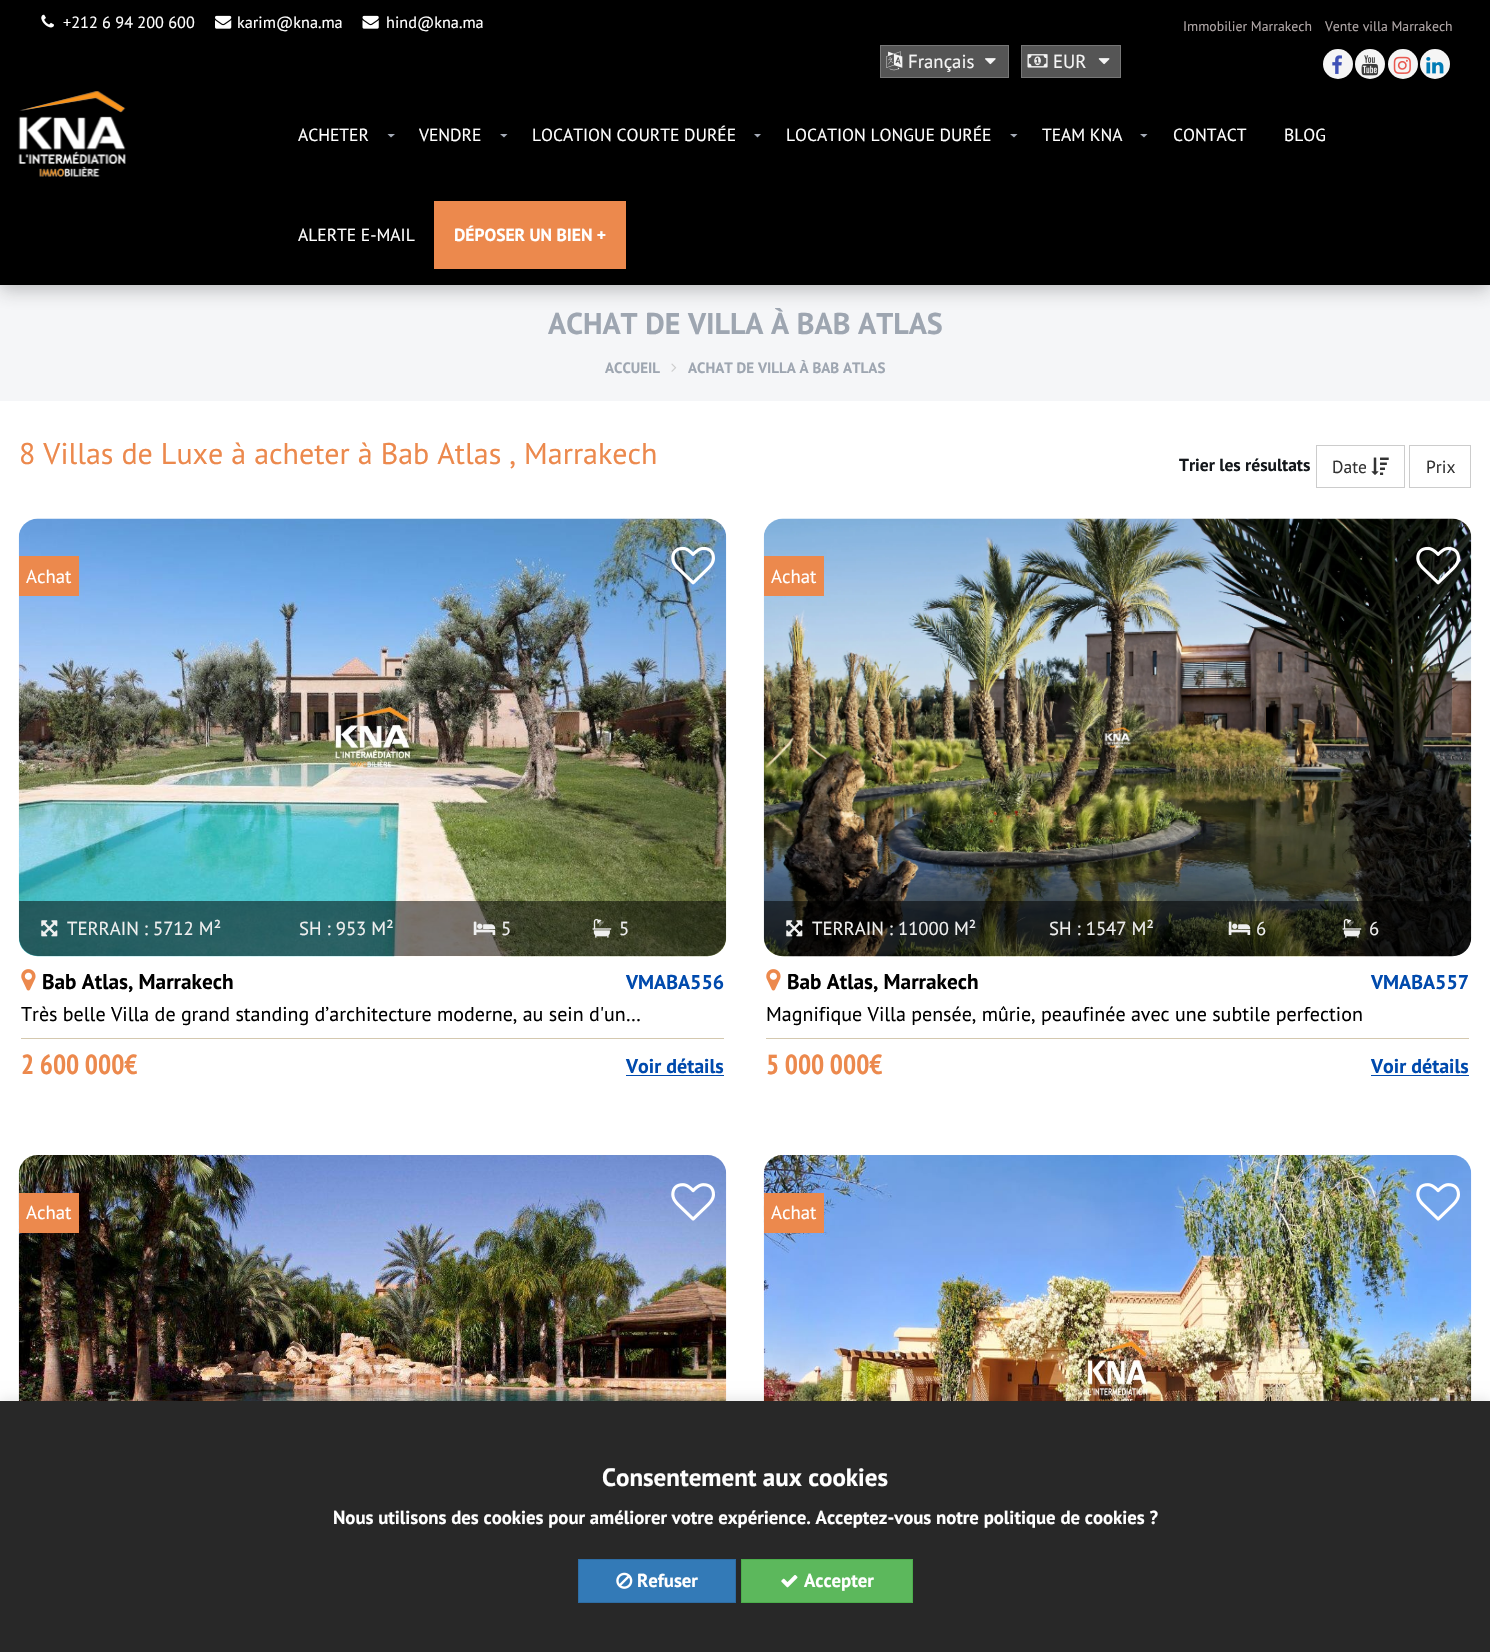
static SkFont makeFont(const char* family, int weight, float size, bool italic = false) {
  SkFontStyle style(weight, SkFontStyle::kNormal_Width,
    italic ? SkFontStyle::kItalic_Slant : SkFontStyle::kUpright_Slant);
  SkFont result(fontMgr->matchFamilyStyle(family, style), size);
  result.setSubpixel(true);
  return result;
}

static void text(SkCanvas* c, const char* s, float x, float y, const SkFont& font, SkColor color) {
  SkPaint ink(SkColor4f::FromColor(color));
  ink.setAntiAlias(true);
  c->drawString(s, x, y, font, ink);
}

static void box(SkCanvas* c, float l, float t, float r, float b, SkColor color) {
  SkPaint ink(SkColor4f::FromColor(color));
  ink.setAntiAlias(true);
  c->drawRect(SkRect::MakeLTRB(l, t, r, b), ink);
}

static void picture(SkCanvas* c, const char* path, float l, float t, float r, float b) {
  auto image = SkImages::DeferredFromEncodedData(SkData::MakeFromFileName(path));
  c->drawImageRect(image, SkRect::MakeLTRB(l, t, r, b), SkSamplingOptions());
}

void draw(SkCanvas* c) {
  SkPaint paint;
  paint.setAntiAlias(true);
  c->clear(0xffffffff);
  box(c, 0, 285, 1490, 401, 0xfff5f6f8);
  paint.setColor(0x4d323232);
  paint.setMaskFilter(SkMaskFilter::MakeBlur(kNormal_SkBlurStyle, 9));
  c->drawRect(SkRect::MakeLTRB(0, 5, 1490, 290), paint);
  paint.setMaskFilter(nullptr);
  box(c, 0, 0, 1490, 285, 0xff000000);
  picture(c, "img_01.png", 41, 14, 54, 28);
  SkFont face1 = makeFont("PT Sans", 400, 16.25f);
  text(c, "+212 6 94 200 600", 63, 28, face1, 0xffffffff);
  picture(c, "img_02.png", 215, 15, 232, 29);
  text(c, "karim@kna.ma", 237, 28, face1, 0xffffffff);
  picture(c, "img_03.png", 362, 15, 379, 29);
  text(c, "hind@kna.ma", 386, 28, face1, 0xffffffff);
  SkFont face2 = makeFont("PT Sans", 400, 13.75f);
  text(c, "Immobilier Marrakech", 1183, 31, face2, 0xffafa6a6);
  text(c, "Vente villa Marrakech", 1325, 31, face2, 0xffafa6a6);
  paint.setColor(0xff555555);
  c->drawRect(SkRect::MakeLTRB(880.5f, 45.5f, 1008.5f, 77.5f), paint);
  paint.setStyle(SkPaint::kStroke_Style);
  paint.setStrokeWidth(1);
  paint.setColor(0xff777777);
  c->drawRect(SkRect::MakeLTRB(880.5f, 45.5f, 1008.5f, 77.5f), paint);
  picture(c, "img_04.png", 886, 51, 903, 71);
  SkFont face3 = makeFont("PT Sans", 400, 18.75f);
  text(c, "Français", 908, 68, face3, 0xfff5f5f5);
  picture(c, "img_05.png", 985, 58, 996, 65);
  paint.setStyle(SkPaint::kFill_Style);
  paint.setColor(0xff555555);
  c->drawRect(SkRect::MakeLTRB(1021.5f, 45.5f, 1120.5f, 77.5f), paint);
  paint.setStyle(SkPaint::kStroke_Style);
  paint.setColor(0xff777777);
  c->drawRect(SkRect::MakeLTRB(1021.5f, 45.5f, 1120.5f, 77.5f), paint);
  picture(c, "img_06.png", 1027, 54, 1048, 68);
  text(c, "EUR", 1053, 68, face3, 0xfff5f5f5);
  picture(c, "img_07.png", 1098, 58, 1110, 65);
  paint.setStyle(SkPaint::kFill_Style);
  paint.setColor(0xfff5f5f5);
  c->drawCircle(1338, 64, 15, paint);
  picture(c, "img_08.png", 1332, 55, 1342, 74);
  c->drawCircle(1370, 64, 15, paint);
  picture(c, "img_09.png", 1361, 55, 1379, 76);
  c->drawCircle(1403, 64, 15, paint);
  picture(c, "img_10.png", 1393, 56, 1411, 74);
  c->drawCircle(1435, 64, 15, paint);
  picture(c, "img_11.png", 1426, 57, 1444, 74);
  picture(c, "img_12.png", 18, 91, 126, 177);
  SkFont face4 = makeFont("PT Sans", 400, 17.5f);
  text(c, "ACHETER", 298, 141, face4, 0xffffffff);
  paint.setColor(0xffa5abb7);
  c->drawPath(SkPathBuilder().moveTo(387.5f, 134).lineTo(395, 134).lineTo(391, 137.5f).close().detach(), paint);
  text(c, "VENDRE", 419, 141, face4, 0xffffffff);
  c->drawPath(SkPathBuilder().moveTo(500, 134).lineTo(507.5f, 134).lineTo(504, 137.5f).close().detach(), paint);
  text(c, "LOCATION COURTE DURÉE", 532, 141, face4, 0xffffffff);
  c->drawPath(SkPathBuilder().moveTo(754, 134).lineTo(761, 134).lineTo(757.5f, 137.5f).close().detach(), paint);
  text(c, "LOCATION LONGUE DURÉE", 786, 141, face4, 0xffffffff);
  c->drawPath(SkPathBuilder().moveTo(1010, 134).lineTo(1017.5f, 134).lineTo(1014, 137.5f).close().detach(), paint);
  text(c, "TEAM KNA", 1042, 141, face4, 0xffffffff);
  c->drawPath(SkPathBuilder().moveTo(1140, 134).lineTo(1147.5f, 134).lineTo(1144, 137.5f).close().detach(), paint);
  text(c, "CONTACT", 1173, 141, face4, 0xffffffff);
  text(c, "BLOG", 1284, 141, face4, 0xffffffff);
  text(c, "ALERTE E-MAIL", 298, 241, face4, 0xffffffff);
  box(c, 434, 201, 626, 269, 0xffec894d);
  SkFont face5 = makeFont("PT Sans", 700, 17.5f);
  text(c, "DÉPOSER UN BIEN +", 454, 241, face5, 0xffffffff);
  SkFont face6 = makeFont("PT Sans", 700, 30);
  text(c, "ACHAT DE VILLA À BAB ATLAS", 548, 334, face6, 0xff9ea6b1);
  SkFont face7 = makeFont("PT Sans", 700, 15);
  text(c, "ACCUEIL", 605, 373, face7, 0xff9ea6b1);
  picture(c, "img_13.png", 671, 363, 677, 372);
  text(c, "ACHAT DE VILLA À BAB ATLAS", 688, 373, face7, 0xff9ea6b1);
  SkFont face8 = makeFont("PT Sans", 400, 30);
  text(c, "8 Villas de Luxe à acheter à Bab Atlas , Marrakech", 19, 464, face8, 0xffec894d);
  text(c, "Trier les résultats", 1179, 471, face5, 0xff14181c);
  paint.setStyle(SkPaint::kStroke_Style);
  paint.setColor(0xffcccccc);
  c->drawRect(SkRect::MakeLTRB(1316.5f, 445.5f, 1404.5f, 487.5f), paint);
  text(c, "Date", 1332, 473, face4, 0xff333333);
  picture(c, "img_14.png", 1371, 457, 1389, 475);
  c->drawRect(SkRect::MakeLTRB(1409.5f, 445.5f, 1470.5f, 487.5f), paint);
  text(c, "Prix", 1426, 473, face4, 0xff333333);
  picture(c, "img_15.png", 18, 518, 727, 957);
  box(c, 19, 556, 79, 596, 0xffec894d);
  text(c, "Achat", 26, 583, face3, 0xffffffff);
  picture(c, "img_16.png", 671, 546, 715, 585);
  paint.setStyle(SkPaint::kFill_Style);
  paint.setColor(0x87000000);
  c->drawPath(SkPathBuilder().moveTo(19, 901).lineTo(726, 901).lineTo(726, 937).cubicTo(726, 947.5f, 717.5f, 956, 707, 956).lineTo(38, 956).cubicTo(27.5f, 956, 19, 947.5f, 19, 937).close().detach(), paint);
  picture(c, "img_17.png", 41, 920, 58, 937);
  text(c, "TERRAIN : 5712 M²", 67, 935, face3, 0xffefefef);
  text(c, "SH : 953 M²", 299, 935, face3, 0xffefefef);
  picture(c, "img_18.png", 473, 921, 496, 935);
  text(c, "5", 501, 935, face3, 0xffefefef);
  picture(c, "img_19.png", 592, 918, 612, 938);
  text(c, "5", 619, 935, face3, 0xffefefef);
  picture(c, "img_20.png", 21, 969, 36, 991);
  SkFont face9 = makeFont("PT Sans", 700, 21.25f);
  text(c, "Bab Atlas, Marrakech", 42, 989, face9, 0xff000000);
  SkFont face10 = makeFont("PT Sans", 700, 20);
  text(c, "VMABA556", 626, 989, face10, 0xff004aad);
  box(c, 21, 1038, 724, 1039, 0xffd4c8ae);
  SkFont face11 = makeFont("PT Sans", 400, 20);
  text(c, "Très belle Villa de grand standing d’architecture moderne, au sein d'un…", 21, 1021, face11, 0xff000000);
  SkFont face12 = makeFont("PT Sans Narrow", 700, 27.5f);
  text(c, "2 600 000€", 21, 1074, face12, 0xffec894d);
  text(c, "Voir détails", 626, 1073, face10, 0xff004aad);
  box(c, 626, 1075, 724, 1076, 0xff004aad);
  picture(c, "img_21.png", 763, 518, 1472, 957);
  box(c, 764, 556, 824, 596, 0xffec894d);
  text(c, "Achat", 771, 583, face3, 0xffffffff);
  picture(c, "img_22.png", 1416, 546, 1460, 585);
  c->drawPath(SkPathBuilder().moveTo(764, 901).lineTo(1471, 901).lineTo(1471, 937).cubicTo(1471, 947.5f, 1462.5f, 956, 1452, 956).lineTo(783, 956).cubicTo(772.5f, 956, 764, 947.5f, 764, 937).close().detach(), paint);
  picture(c, "img_23.png", 786, 920, 803, 937);
  text(c, "TERRAIN : 11000 M²", 812, 935, face3, 0xffefefef);
  text(c, "SH : 1547 M²", 1049, 935, face3, 0xffefefef);
  picture(c, "img_24.png", 1228, 921, 1251, 935);
  text(c, "6", 1256, 935, face3, 0xffefefef);
  picture(c, "img_25.png", 1342, 918, 1362, 938);
  text(c, "6", 1369, 935, face3, 0xffefefef);
  picture(c, "img_20.png", 766, 969, 781, 991);
  text(c, "Bab Atlas, Marrakech", 787, 989, face9, 0xff000000);
  text(c, "VMABA557", 1371, 989, face10, 0xff004aad);
  box(c, 766, 1038, 1469, 1039, 0xffd4c8ae);
  text(c, "Magnifique Villa pensée, mûrie, peaufinée avec une subtile perfection", 766, 1021, face11, 0xff000000);
  text(c, "5 000 000€", 766, 1074, face12, 0xffec894d);
  text(c, "Voir détails", 1371, 1073, face10, 0xff004aad);
  box(c, 1371, 1075, 1469, 1076, 0xff004aad);
  picture(c, "img_26.png", 18, 1155, 727, 1401);
  box(c, 19, 1193, 79, 1233, 0xffec894d);
  text(c, "Achat", 26, 1219, face3, 0xffffffff);
  picture(c, "img_27.png", 671, 1183, 715, 1221);
  picture(c, "img_28.png", 763, 1155, 1472, 1401);
  box(c, 764, 1193, 824, 1233, 0xffec894d);
  text(c, "Achat", 771, 1219, face3, 0xffffffff);
  picture(c, "img_29.png", 1416, 1183, 1460, 1221);
  paint.setColor(0x1a000000);
  paint.setMaskFilter(SkMaskFilter::MakeBlur(kNormal_SkBlurStyle, 6));
  c->drawRect(SkRect::MakeLTRB(0, 1399, 1490, 1650), paint);
  paint.setMaskFilter(nullptr);
  box(c, 0, 1401, 1490, 1652, 0xff282828);
  SkFont face13 = makeFont("PT Sans", 700, 25);
  text(c, "Consentement aux cookies", 602, 1486, face13, 0xffffffff);
  SkFont face14 = makeFont("PT Sans", 700, 18.75f);
  text(c, "Nous utilisons des cookies pour améliorer votre expérience. Acceptez-vous notre politique de cookies ?", 333, 1524, face14, 0xffffffff);
  paint.setColor(0xff337ab7);
  c->drawRect(SkRect::MakeLTRB(578.5f, 1559.5f, 735.5f, 1602.5f), paint);
  paint.setStyle(SkPaint::kStroke_Style);
  paint.setColor(0xff2e6da4);
  c->drawRect(SkRect::MakeLTRB(578.5f, 1559.5f, 735.5f, 1602.5f), paint);
  picture(c, "img_30.png", 616, 1572, 633, 1589);
  text(c, "Refuser", 637, 1587, face14, 0xffffffff);
  paint.setStyle(SkPaint::kFill_Style);
  paint.setColor(0xff5cb85c);
  c->drawRect(SkRect::MakeLTRB(741.5f, 1559.5f, 912.5f, 1602.5f), paint);
  paint.setStyle(SkPaint::kStroke_Style);
  paint.setColor(0xff4cae4c);
  c->drawRect(SkRect::MakeLTRB(741.5f, 1559.5f, 912.5f, 1602.5f), paint);
  picture(c, "img_31.png", 781, 1575, 798, 1588);
  text(c, "Accepter", 804, 1587, face14, 0xffffffff);
}
